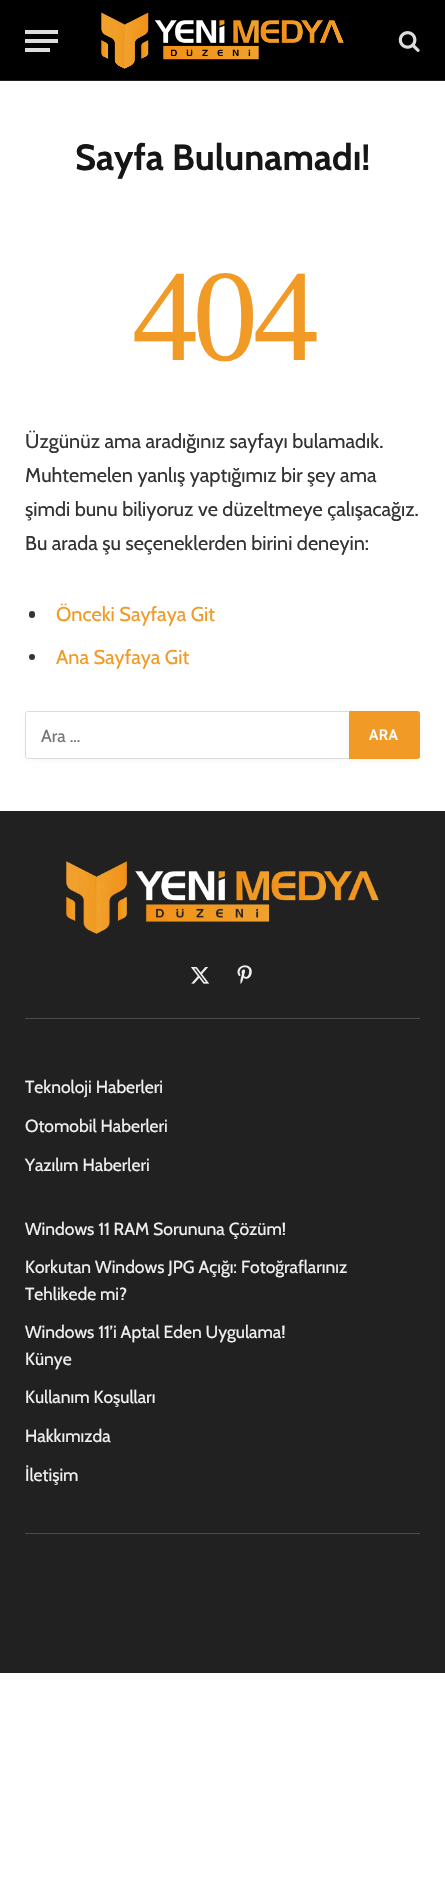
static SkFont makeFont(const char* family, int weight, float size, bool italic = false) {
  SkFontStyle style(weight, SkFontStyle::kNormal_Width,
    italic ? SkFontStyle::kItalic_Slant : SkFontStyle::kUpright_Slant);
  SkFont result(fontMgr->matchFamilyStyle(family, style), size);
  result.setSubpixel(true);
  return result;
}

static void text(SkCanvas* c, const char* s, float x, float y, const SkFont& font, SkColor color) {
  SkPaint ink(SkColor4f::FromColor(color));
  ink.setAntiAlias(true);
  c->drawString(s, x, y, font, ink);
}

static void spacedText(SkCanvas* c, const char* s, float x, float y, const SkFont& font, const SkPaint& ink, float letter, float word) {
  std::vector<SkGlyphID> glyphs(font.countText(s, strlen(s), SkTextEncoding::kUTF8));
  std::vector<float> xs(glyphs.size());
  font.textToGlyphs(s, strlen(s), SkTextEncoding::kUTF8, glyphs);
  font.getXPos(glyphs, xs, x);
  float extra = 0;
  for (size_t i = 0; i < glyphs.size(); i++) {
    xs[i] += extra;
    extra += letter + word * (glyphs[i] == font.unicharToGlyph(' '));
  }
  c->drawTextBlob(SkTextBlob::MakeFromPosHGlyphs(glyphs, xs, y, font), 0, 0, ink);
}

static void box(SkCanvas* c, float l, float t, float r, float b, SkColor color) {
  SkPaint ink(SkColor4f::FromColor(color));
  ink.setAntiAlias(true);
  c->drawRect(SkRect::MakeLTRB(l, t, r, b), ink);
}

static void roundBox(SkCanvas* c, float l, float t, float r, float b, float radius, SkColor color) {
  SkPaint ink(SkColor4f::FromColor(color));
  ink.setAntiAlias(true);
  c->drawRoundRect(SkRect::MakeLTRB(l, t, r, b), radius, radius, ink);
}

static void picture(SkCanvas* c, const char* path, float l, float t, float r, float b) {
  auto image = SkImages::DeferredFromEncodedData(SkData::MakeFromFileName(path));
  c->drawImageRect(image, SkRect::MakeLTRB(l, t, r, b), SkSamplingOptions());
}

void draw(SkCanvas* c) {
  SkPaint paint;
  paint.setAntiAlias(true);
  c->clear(0xffffffff);
  box(c, 0, 0, 445, 80, 0xff000000);
  box(c, 0, 80, 445, 81, 0xff222222);
  box(c, 25, 48, 50, 52, 0xffdddddd);
  box(c, 25, 30, 58, 34, 0xffdddddd);
  box(c, 25, 39, 58, 43, 0xffdddddd);
  picture(c, "img_01.png", 101, 12, 344, 69);
  picture(c, "img_02.png", 398, 31, 420, 52);
  SkFont face1 = makeFont("Cabin", 700, 36.25f);
  text(c, "Sayfa Bulunamadı!", 75, 170, face1, 0xff161616);
  SkFont face2 = makeFont("Liberation Serif", 400, 131);
  paint.setColor(0xfff19a26);
  spacedText(c, "404", 132, 360, face2, paint, -5, 0);
  SkFont face3 = makeFont("Cabin", 400, 19.9f);
  text(c, "Üzgünüz ama aradığınız sayfayı bulamadık.", 25, 448, face3, 0xff333333);
  text(c, "Muhtemelen yanlış yaptığımız bir şey ama", 25, 482, face3, 0xff333333);
  text(c, "şimdi bunu biliyoruz ve düzeltmeye çalışacağız.", 25, 516, face3, 0xff333333);
  text(c, "Bu arada şu seçeneklerden birini deneyin:", 25, 550, face3, 0xff333333);
  roundBox(c, 29, 611, 35, 618, 3, 0xff333333);
  text(c, "Önceki Sayfaya Git", 56, 621, face3, 0xfff19a26);
  paint.setColor(0xff333333);
  c->drawCircle(32, 657, 3, paint);
  text(c, "Ana Sayfaya Git", 56, 664, face3, 0xfff19a26);
  paint.setColor(0x1a000000);
  paint.setMaskFilter(SkMaskFilter::MakeBlur(kNormal_SkBlurStyle, 4.5f));
  c->drawRect(SkRect::MakeLTRB(30, 719, 346, 756), paint);
  paint.setMaskFilter(nullptr);
  paint.setColor(0xffffffff);
  c->drawRoundRect(SkRect::MakeLTRB(25.5f, 711.5f, 350.5f, 758.5f), 2, 2, paint);
  paint.setStyle(SkPaint::kStroke_Style);
  paint.setStrokeWidth(1);
  paint.setColor(0xffdddddd);
  c->drawRoundRect(SkRect::MakeLTRB(25.5f, 711.5f, 350.5f, 758.5f), 2, 2, paint);
  SkFont face4 = makeFont("Cabin", 400, 17.5f);
  text(c, "Ara …", 41, 742, face4, 0xff777777);
  paint.setStyle(SkPaint::kFill_Style);
  paint.setColor(0x29000000);
  paint.setMaskFilter(SkMaskFilter::MakeBlur(kNormal_SkBlurStyle, 4.5f));
  c->drawRect(SkRect::MakeLTRB(354, 719, 415, 756), paint);
  paint.setMaskFilter(nullptr);
  paint.setColor(0xfff19a26);
  c->drawPath(SkPathBuilder().moveTo(349, 711).lineTo(417.5f, 711).cubicTo(419, 711, 420, 712, 420, 713.5f).lineTo(420, 756.5f).cubicTo(420, 758, 419, 759, 417.5f, 759).lineTo(349, 759).close().detach(), paint);
  SkFont face5 = makeFont("Cabin", 600, 15);
  paint.setColor(0xffffffff);
  spacedText(c, "ARA", 369, 740, face5, paint, 0.5f, 0);
  box(c, 0, 811, 445, 1673, 0xff212121);
  picture(c, "img_03.png", 66, 861, 379, 934);
  picture(c, "img_04.png", 191, 967, 210, 984);
  picture(c, "img_05.png", 237, 965, 252, 984);
  box(c, 25, 1018, 420, 1019, 0xff4b4b4b);
  text(c, "Teknoloji Haberleri", 25, 1093, face4, 0xfff0f0f0);
  text(c, "Otomobil Haberleri", 25, 1132, face4, 0xfff0f0f0);
  text(c, "Yazılım Haberleri", 25, 1171, face4, 0xfff0f0f0);
  text(c, "Windows 11 RAM Sorununa Çözüm!", 25, 1235, face4, 0xfff0f0f0);
  text(c, "Korkutan Windows JPG Açığı: Fotoğraflarınız", 25, 1273, face4, 0xfff0f0f0);
  text(c, "Tehlikede mi?", 25, 1300, face4, 0xfff0f0f0);
  text(c, "Windows 11’i Aptal Eden Uygulama!", 25, 1338, face4, 0xfff0f0f0);
  text(c, "Künye", 25, 1365, face4, 0xfff0f0f0);
  text(c, "Kullanım Koşulları", 25, 1403, face4, 0xfff0f0f0);
  text(c, "Hakkımızda", 25, 1442, face4, 0xfff0f0f0);
  text(c, "İletişim", 25, 1481, face4, 0xfff0f0f0);
  box(c, 25, 1533, 420, 1534, 0xff4b4b4b);
}
